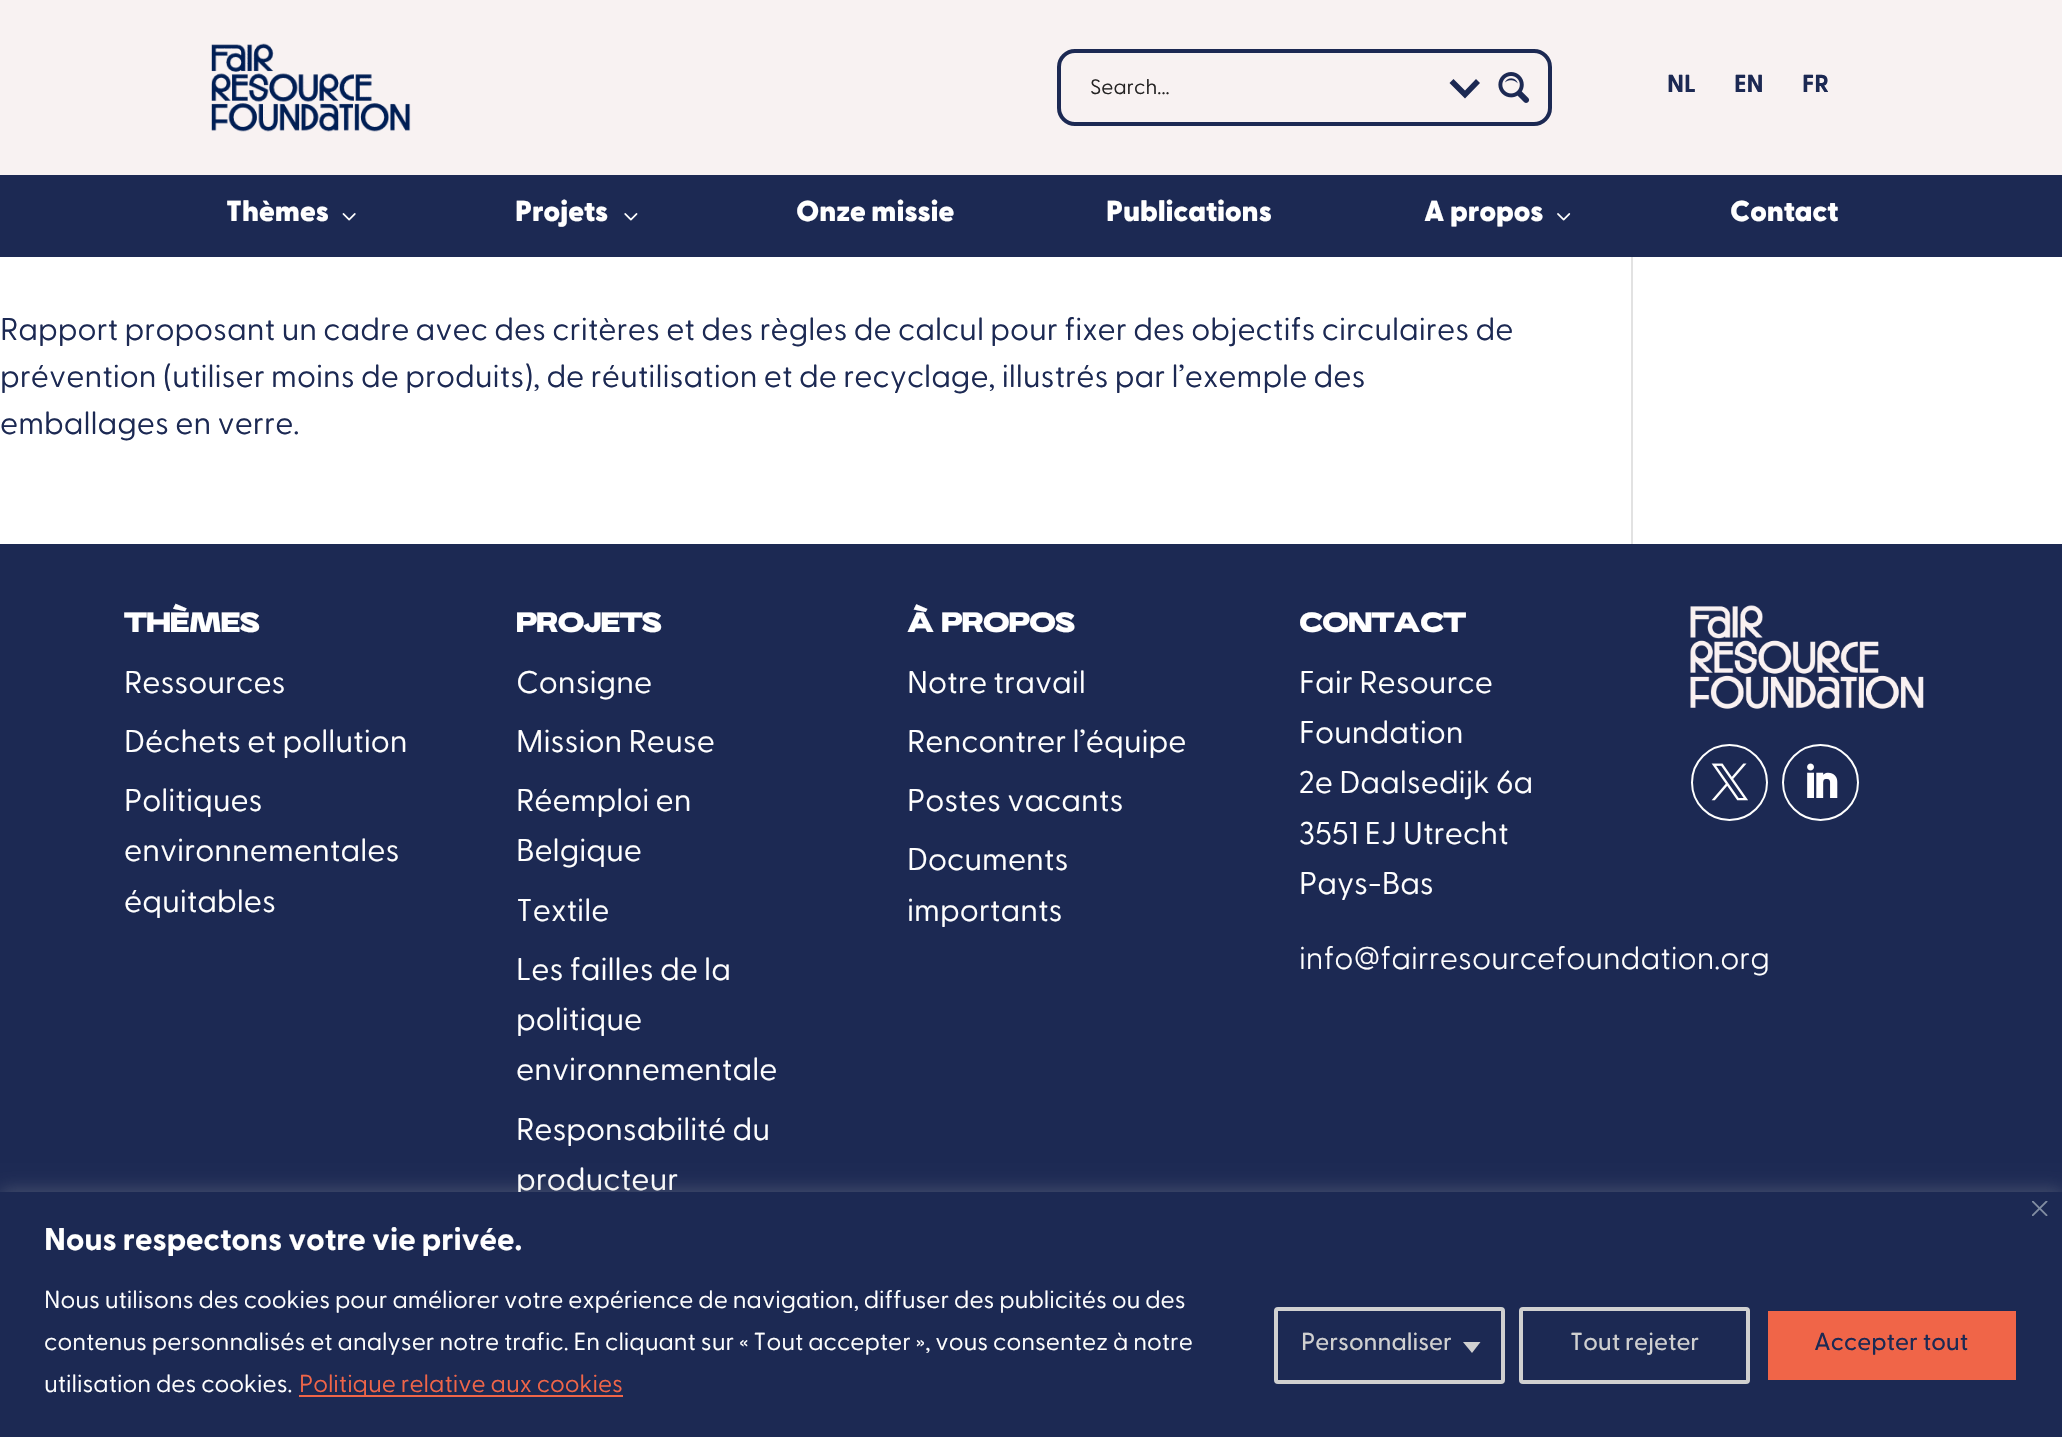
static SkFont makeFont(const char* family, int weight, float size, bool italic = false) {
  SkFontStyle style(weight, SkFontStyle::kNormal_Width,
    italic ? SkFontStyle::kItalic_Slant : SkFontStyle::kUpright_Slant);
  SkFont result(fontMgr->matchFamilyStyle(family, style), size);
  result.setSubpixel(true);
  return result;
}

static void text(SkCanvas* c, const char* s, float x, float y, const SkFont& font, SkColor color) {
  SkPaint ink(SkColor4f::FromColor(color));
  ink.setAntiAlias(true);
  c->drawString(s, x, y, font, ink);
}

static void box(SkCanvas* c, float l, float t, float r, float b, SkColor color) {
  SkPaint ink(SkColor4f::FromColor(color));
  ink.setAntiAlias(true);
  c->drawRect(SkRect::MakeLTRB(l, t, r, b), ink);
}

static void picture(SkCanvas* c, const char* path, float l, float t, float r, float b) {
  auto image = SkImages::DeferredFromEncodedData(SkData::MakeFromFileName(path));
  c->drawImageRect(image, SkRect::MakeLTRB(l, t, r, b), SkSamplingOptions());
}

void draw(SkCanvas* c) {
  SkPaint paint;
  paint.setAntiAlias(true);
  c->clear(0xffffffff);
  box(c, 0, 0, 2062, 175, 0xfff8f2f2);
  picture(c, "img_01.png", 211, 43, 411, 132);
  paint.setStyle(SkPaint::kStroke_Style);
  paint.setStrokeWidth(4);
  paint.setColor(0xff1c2953);
  c->drawRoundRect(SkRect::MakeLTRB(1059, 51, 1550, 124), 16, 16, paint);
  SkFont face1 = makeFont("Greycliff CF", 400, 21);
  text(c, "Search...", 1090, 94, face1, 0xff252424);
  paint.setStyle(SkPaint::kFill_Style);
  c->drawPath(SkPathBuilder().moveTo(1476, 79).lineTo(1480, 83).lineTo(1465, 98.5f).lineTo(1449.5f, 83).lineTo(1453.5f, 79).lineTo(1465, 90.5f).close().detach(), paint);
  picture(c, "img_02.png", 1498, 72, 1530, 103);
  SkFont face2 = makeFont("Greycliff CF", 700, 24.5f);
  text(c, "NL", 1667, 92, face2, 0xff1c2953);
  text(c, "EN", 1734, 92, face2, 0xff1c2953);
  text(c, "FR", 1802, 92, face2, 0xff1c2953);
  box(c, 0, 175, 2062, 257, 0xff1c2953);
  SkFont face3 = makeFont("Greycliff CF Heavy", 900, 29);
  text(c, "Thèmes", 226, 221, face3, 0xffffffff);
  picture(c, "img_03.png", 342, 213, 356, 221);
  text(c, "Projets", 515, 221, face3, 0xffffffff);
  picture(c, "img_04.png", 624, 213, 638, 221);
  text(c, "Onze missie", 796, 221, face3, 0xffffffff);
  text(c, "Publications", 1106, 221, face3, 0xffffffff);
  text(c, "A propos", 1424, 221, face3, 0xffffffff);
  picture(c, "img_05.png", 1557, 213, 1571, 221);
  text(c, "Contact", 1730, 221, face3, 0xffffffff);
  SkFont face4 = makeFont("Greycliff CF", 400, 31.5f);
  text(c, "Rapport proposant un cadre avec des critères et des règles de calcul pour fixer des objectifs circulaires de", 0, 340, face4, 0xff1c2953);
  text(c, "prévention (utiliser moins de produits), de réutilisation et de recyclage, illustrés par l’exemple des", 0, 387, face4, 0xff1c2953);
  text(c, "emballages en verre.", 0, 434, face4, 0xff1c2953);
  box(c, 1631, 257, 1633, 544, 0xffe2e2e2);
  box(c, 0, 544, 2062, 1192, 0xff1c2953);
  SkFont face5 = makeFont("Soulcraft", 700, 26.75f);
  text(c, "THÈMES", 124, 632, face5, 0xffffffff);
  text(c, "Ressources", 124, 693, face4, 0xffffffff);
  text(c, "Déchets et pollution", 124, 752, face4, 0xffffffff);
  text(c, "Politiques", 124, 811, face4, 0xffffffff);
  text(c, "environnementales", 124, 861, face4, 0xffffffff);
  text(c, "équitables", 124, 912, face4, 0xffffffff);
  text(c, "PROJETS", 516, 632, face5, 0xffffffff);
  text(c, "Consigne", 516, 693, face4, 0xffffffff);
  text(c, "Mission Reuse", 516, 752, face4, 0xffffffff);
  text(c, "Réemploi en", 516, 811, face4, 0xffffffff);
  text(c, "Belgique", 516, 861, face4, 0xffffffff);
  text(c, "Textile", 516, 921, face4, 0xffffffff);
  text(c, "Les failles de la", 516, 980, face4, 0xffffffff);
  text(c, "politique", 516, 1030, face4, 0xffffffff);
  text(c, "environnementale", 516, 1080, face4, 0xffffffff);
  text(c, "Responsabilité du", 516, 1140, face4, 0xffffffff);
  text(c, "producteur", 516, 1190, face4, 0xffffffff);
  text(c, "À PROPOS", 907, 632, face5, 0xffffffff);
  text(c, "Notre travail", 907, 693, face4, 0xffffffff);
  text(c, "Rencontrer l’équipe", 907, 752, face4, 0xffffffff);
  text(c, "Postes vacants", 907, 811, face4, 0xffffffff);
  text(c, "Documents", 907, 870, face4, 0xffffffff);
  text(c, "importants", 907, 921, face4, 0xffffffff);
  text(c, "CONTACT", 1299, 632, face5, 0xffffffff);
  text(c, "Fair Resource", 1299, 693, face4, 0xffffffff);
  text(c, "Foundation", 1299, 743, face4, 0xffffffff);
  text(c, "2e Daalsedijk 6a", 1299, 793, face4, 0xffffffff);
  text(c, "3551 EJ Utrecht", 1299, 844, face4, 0xffffffff);
  text(c, "Pays-Bas", 1299, 894, face4, 0xffffffff);
  SkFont face6 = makeFont("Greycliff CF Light", 300, 31.5f);
  text(c, "info@fairresourcefoundation.org", 1299, 969, face6, 0xffffffff);
  picture(c, "img_06.png", 1690, 605, 1924, 709);
  paint.setStyle(SkPaint::kStroke_Style);
  paint.setStrokeWidth(2);
  paint.setColor(0xffffffff);
  c->drawCircle(1729.5f, 782.5f, 37.5f, paint);
  picture(c, "img_07.png", 1711, 763, 1748, 801);
  c->drawCircle(1820.5f, 782.5f, 37.5f, paint);
  picture(c, "img_08.png", 1807, 763, 1838, 798);
  paint.setStyle(SkPaint::kFill_Style);
  paint.setColor(0x4dacabab);
  paint.setMaskFilter(SkMaskFilter::MakeBlur(kNormal_SkBlurStyle, 9));
  c->drawRect(SkRect::MakeLTRB(0, 1190, 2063, 1437), paint);
  paint.setMaskFilter(nullptr);
  box(c, 0, 1192, 2062, 1437, 0xff1c2953);
  picture(c, "img_09.png", 2032, 1201, 2048, 1216);
  SkFont face7 = makeFont("Greycliff CF", 700, 31.5f);
  text(c, "Nous respectons votre vie privée.", 44, 1250, face7, 0xffffffff);
  SkFont face8 = makeFont("Greycliff CF", 400, 24.5f);
  text(c, "Nous utilisons des cookies pour améliorer votre expérience de navigation, diffuser des publicités ou des", 44, 1308, face8, 0xffffffff);
  text(c, "contenus personnalisés et analyser notre trafic. En cliquant sur « Tout accepter », vous consentez à notre", 44, 1350, face8, 0xffffffff);
  text(c, "utilisation des cookies.", 44, 1392, face8, 0xffffffff);
  box(c, 299, 1395, 623, 1397, 0xfff06548);
  text(c, "Politique relative aux cookies", 299, 1392, face8, 0xfff06548);
  paint.setStyle(SkPaint::kStroke_Style);
  paint.setStrokeWidth(4);
  paint.setColor(0xffd0d0d0);
  c->drawRoundRect(SkRect::MakeLTRB(1276, 1309, 1503, 1382), 2, 2, paint);
  SkFont face9 = makeFont("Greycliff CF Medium", 500, 24.5f);
  text(c, "Personnaliser", 1301, 1350, face9, 0xffd0d0d0);
  paint.setStyle(SkPaint::kFill_Style);
  c->drawPath(SkPathBuilder().moveTo(1463, 1342).lineTo(1480.5f, 1342).lineTo(1472, 1353).close().detach(), paint);
  paint.setStyle(SkPaint::kStroke_Style);
  c->drawRoundRect(SkRect::MakeLTRB(1521, 1309, 1748, 1382), 2, 2, paint);
  text(c, "Tout rejeter", 1570, 1350, face9, 0xffd0d0d0);
  paint.setStyle(SkPaint::kFill_Style);
  paint.setColor(0xfff06548);
  c->drawRoundRect(SkRect::MakeLTRB(1766, 1309, 2018, 1382), 2, 2, paint);
  paint.setStyle(SkPaint::kStroke_Style);
  paint.setColor(0xff1c2953);
  c->drawRoundRect(SkRect::MakeLTRB(1766, 1309, 2018, 1382), 2, 2, paint);
  text(c, "Accepter tout", 1814, 1350, face9, 0xff1c2953);
}
